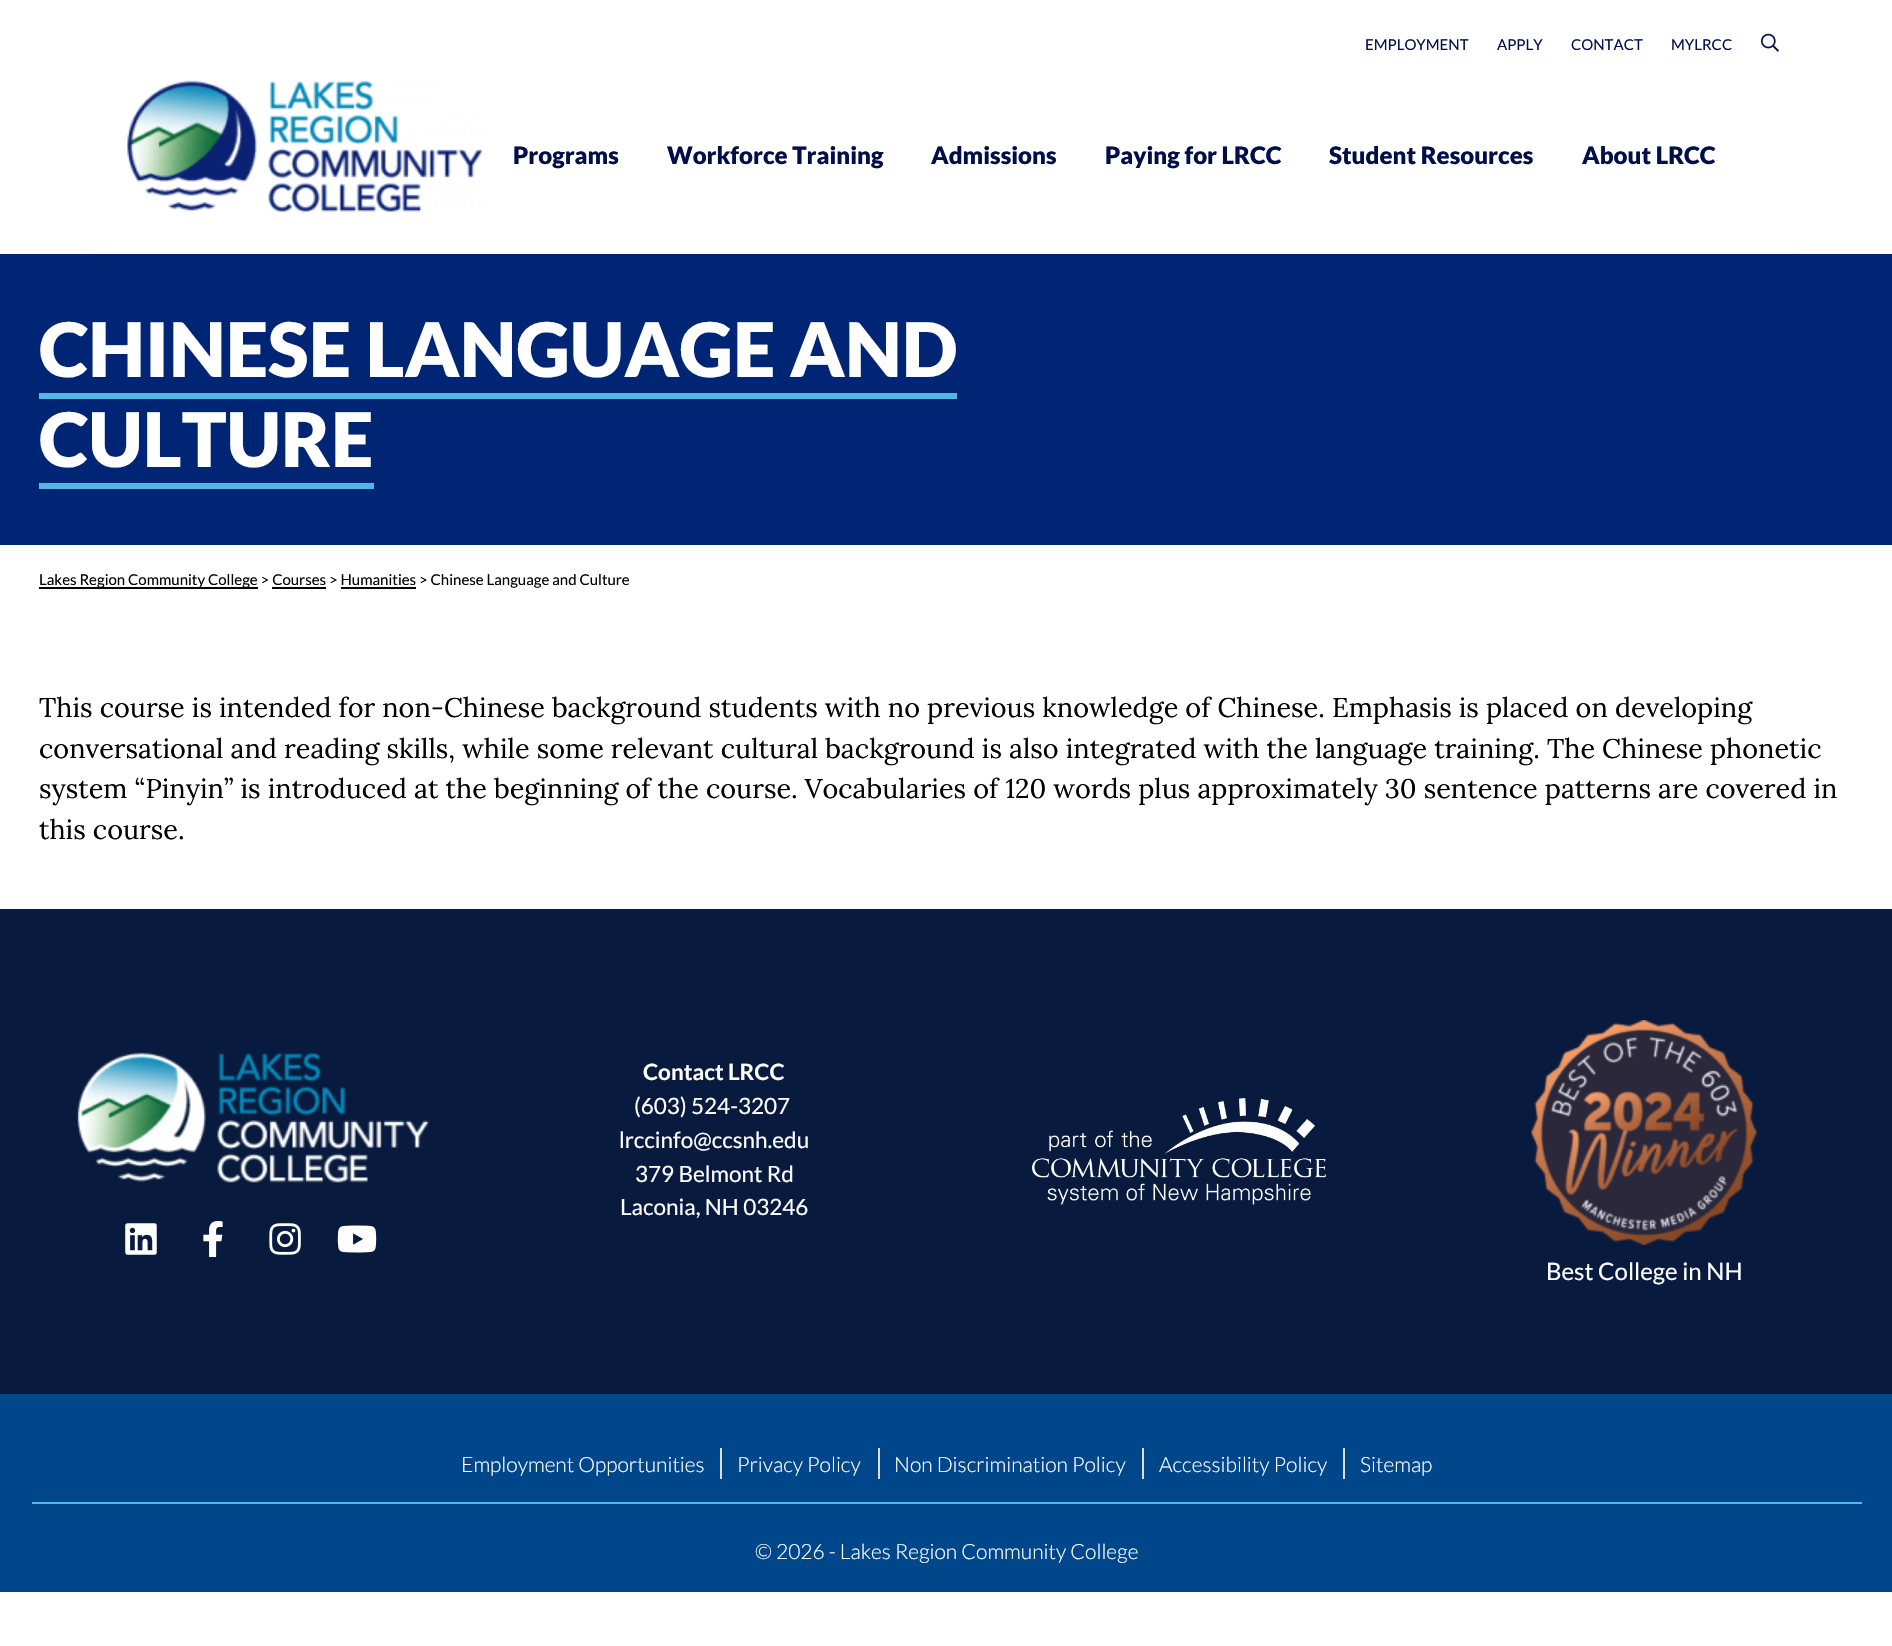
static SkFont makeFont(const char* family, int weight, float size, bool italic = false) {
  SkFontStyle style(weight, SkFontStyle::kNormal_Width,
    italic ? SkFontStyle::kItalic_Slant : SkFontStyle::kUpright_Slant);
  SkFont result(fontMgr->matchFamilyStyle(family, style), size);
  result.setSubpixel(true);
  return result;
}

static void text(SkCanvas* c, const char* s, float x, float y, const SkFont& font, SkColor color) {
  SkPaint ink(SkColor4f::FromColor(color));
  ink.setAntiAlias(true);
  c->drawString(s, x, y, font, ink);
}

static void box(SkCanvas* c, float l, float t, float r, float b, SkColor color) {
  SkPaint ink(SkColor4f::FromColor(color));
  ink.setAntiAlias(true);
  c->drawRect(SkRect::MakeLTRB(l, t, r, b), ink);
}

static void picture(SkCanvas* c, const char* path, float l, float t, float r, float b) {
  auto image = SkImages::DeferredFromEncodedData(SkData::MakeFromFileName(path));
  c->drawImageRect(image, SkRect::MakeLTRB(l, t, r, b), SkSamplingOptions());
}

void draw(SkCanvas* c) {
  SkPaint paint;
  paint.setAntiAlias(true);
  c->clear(0xffffffff);
  box(c, 0, 254, 1892, 545, 0xff002575);
  paint.setColor(0xff001f63);
  c->drawPath(SkPathBuilder().moveTo(92, 254).lineTo(92, 255).lineTo(1802, 255).lineTo(1802, 2).lineTo(1802, 254).close().detach(), paint);
  SkFont face1 = makeFont("Lato", 400, 15);
  text(c, "EMPLOYMENT", 1365, 50, face1, 0xff000f49);
  text(c, "APPLY", 1497, 50, face1, 0xff000f49);
  text(c, "CONTACT", 1571, 50, face1, 0xff000f49);
  text(c, "MYLRCC", 1671, 50, face1, 0xff000f49);
  picture(c, "img_01.png", 1761, 33, 1779, 52);
  picture(c, "img_02.png", 127, 80, 483, 212);
  SkFont face2 = makeFont("Lato", 900, 24);
  text(c, "Programs", 513, 164, face2, 0xff000f49);
  text(c, "Workforce Training", 667, 164, face2, 0xff000f49);
  text(c, "Admissions", 931, 164, face2, 0xff000f49);
  text(c, "Paying for LRCC", 1105, 164, face2, 0xff000f49);
  text(c, "Student Resources", 1329, 164, face2, 0xff000f49);
  text(c, "About LRCC", 1582, 164, face2, 0xff000f49);
  SkFont face3 = makeFont("Lato", 900, 75);
  text(c, "CHINESE LANGUAGE AND", 39, 377, face3, 0xffffffff);
  text(c, "CULTURE", 39, 467, face3, 0xffffffff);
  box(c, 39, 393, 957, 399, 0xff53b7e3);
  box(c, 39, 483, 374, 489, 0xff53b7e3);
  box(c, 39, 587, 258, 589, 0xff000000);
  text(c, "Lakes Region Community College > Courses > Humanities > Chinese Language and Culture", 39, 585, face1, 0xff000000);
  box(c, 272, 587, 326, 589, 0xff000000);
  box(c, 341, 587, 416, 589, 0xff000000);
  SkFont face4 = makeFont("Lora", 400, 27);
  text(c, "This course is intended for non-Chinese background students with no previous knowledge of Chinese. Emphasis is placed on developing", 39, 717, face4, 0xff000000);
  text(c, "conversational and reading skills, while some relevant cultural background is also integrated with the language training. The Chinese phonetic", 39, 758, face4, 0xff000000);
  text(c, "system “Pinyin” is introduced at the beginning of the course. Vocabularies of 120 words plus approximately 30 sentence patterns are covered in", 39, 798, face4, 0xff000000);
  text(c, "this course.", 39, 839, face4, 0xff000000);
  box(c, 0, 909, 1892, 1394, 0xff081b3e);
  picture(c, "img_03.png", 77, 1052, 430, 1183);
  picture(c, "img_04.png", 125, 1223, 157, 1255);
  picture(c, "img_05.png", 203, 1221, 223, 1257);
  picture(c, "img_06.png", 269, 1223, 301, 1255);
  picture(c, "img_07.png", 337, 1225, 377, 1253);
  SkFont face5 = makeFont("Lato", 700, 22.5f);
  text(c, "Contact LRCC", 643, 1080, face5, 0xffffffff);
  SkFont face6 = makeFont("Lato", 400, 22.5f);
  text(c, "(603) 524-3207", 634, 1114, face6, 0xffffffff);
  text(c, "lrccinfo@ccsnh.edu", 619, 1148, face6, 0xffffffff);
  text(c, "379 Belmont Rd", 635, 1182, face6, 0xffffffff);
  text(c, "Laconia, NH 03246", 620, 1215, face6, 0xffffffff);
  picture(c, "img_08.png", 1032, 1098, 1326, 1205);
  picture(c, "img_09.png", 1531, 1020, 1757, 1245);
  SkFont face7 = makeFont("Lato", 400, 24);
  text(c, "Best College in NH", 1546, 1280, face7, 0xffffffff);
  box(c, 0, 1394, 1892, 1592, 0xff00468b);
  SkFont face8 = makeFont("Lato", 300, 21);
  text(c, "Employment Opportunities", 461, 1472, face8, 0xffffffff);
  box(c, 720, 1448, 722, 1479, 0xffdddddd);
  text(c, "Privacy Policy", 737, 1472, face8, 0xffffffff);
  box(c, 878, 1448, 880, 1479, 0xffdddddd);
  text(c, "Non Discrimination Policy", 894, 1472, face8, 0xffffffff);
  box(c, 1142, 1448, 1144, 1479, 0xffdddddd);
  text(c, "Accessibility Policy", 1159, 1472, face8, 0xffffffff);
  box(c, 1343, 1448, 1345, 1479, 0xffdddddd);
  text(c, "Sitemap", 1360, 1472, face8, 0xffffffff);
  box(c, 32, 1502, 1862, 1504, 0xff53b7e3);
  text(c, "© 2026 - Lakes Region Community College", 755, 1559, face8, 0xffffffff);
}
